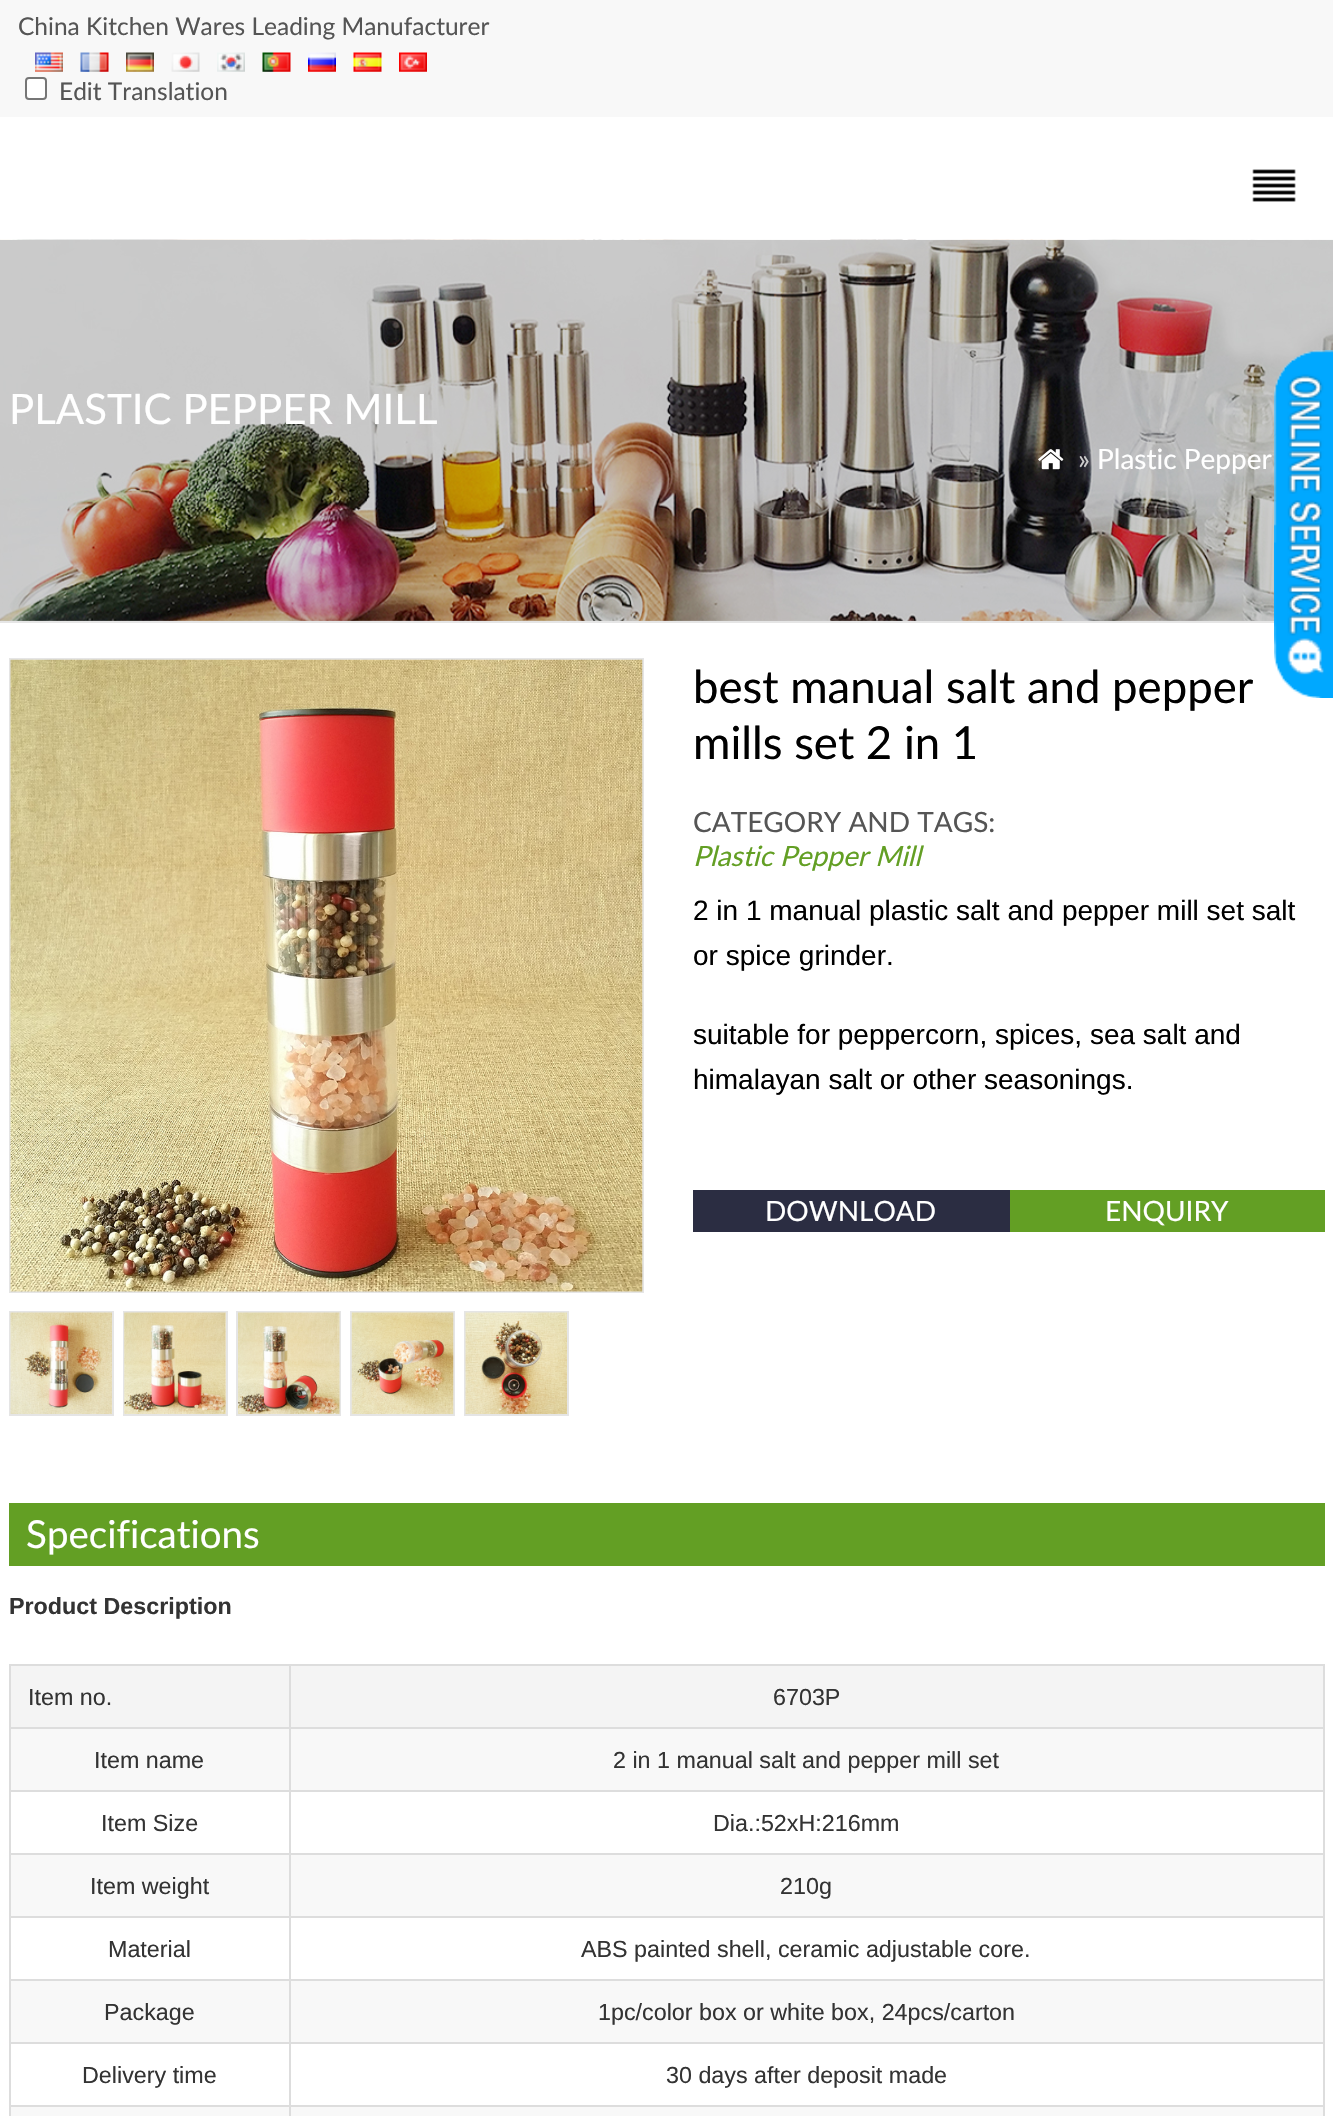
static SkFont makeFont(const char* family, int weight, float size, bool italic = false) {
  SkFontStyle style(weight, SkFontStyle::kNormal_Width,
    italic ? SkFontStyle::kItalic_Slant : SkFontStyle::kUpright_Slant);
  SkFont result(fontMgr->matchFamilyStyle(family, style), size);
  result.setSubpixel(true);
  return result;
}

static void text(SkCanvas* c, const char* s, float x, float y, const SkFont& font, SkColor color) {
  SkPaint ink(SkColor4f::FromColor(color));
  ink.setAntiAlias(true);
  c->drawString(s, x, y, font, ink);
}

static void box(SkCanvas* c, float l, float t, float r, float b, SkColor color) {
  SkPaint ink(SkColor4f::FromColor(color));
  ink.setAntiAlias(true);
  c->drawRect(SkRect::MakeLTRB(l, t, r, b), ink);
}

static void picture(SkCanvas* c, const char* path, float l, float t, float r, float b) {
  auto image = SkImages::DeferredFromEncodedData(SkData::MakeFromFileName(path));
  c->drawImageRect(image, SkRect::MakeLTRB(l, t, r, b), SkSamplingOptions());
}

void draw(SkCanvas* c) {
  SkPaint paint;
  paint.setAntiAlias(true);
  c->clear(0xffffffff);
  box(c, 0, 0, 1333, 117, 0xfff8f8f8);
  SkFont face1 = makeFont("Lato", 400, 24.5f);
  text(c, "China Kitchen Wares Leading Manufacturer", 18, 35, face1, 0xff555555);
  picture(c, "img_01.png", 35, 52, 63, 72);
  picture(c, "img_02.png", 80, 52, 109, 72);
  picture(c, "img_03.png", 126, 52, 154, 72);
  picture(c, "img_04.png", 171, 52, 200, 72);
  picture(c, "img_05.png", 217, 52, 245, 72);
  picture(c, "img_06.png", 262, 52, 291, 72);
  picture(c, "img_07.png", 308, 52, 336, 72);
  picture(c, "img_08.png", 353, 52, 382, 72);
  picture(c, "img_09.png", 399, 52, 427, 72);
  paint.setColor(0xffffffff);
  c->drawRoundRect(SkRect::MakeLTRB(26, 78, 46, 99), 3, 3, paint);
  paint.setStyle(SkPaint::kStroke_Style);
  paint.setStrokeWidth(2);
  paint.setColor(0xff767676);
  c->drawRoundRect(SkRect::MakeLTRB(26, 78, 46, 99), 3, 3, paint);
  text(c, "Edit Translation", 59, 100, face1, 0xff555555);
  picture(c, "img_10.png", 1252, 169, 1296, 202);
  picture(c, "img_11.png", 0, 239, 1333, 621);
  box(c, 0, 621, 1277, 623, 0xffe5e5e5);
  SkFont face2 = makeFont("Lato", 400, 42);
  text(c, "PLASTIC PEPPER MILL", 9, 424, face2, 0xffffffff);
  picture(c, "img_12.png", 1038, 449, 1064, 470);
  SkFont face3 = makeFont("Lato", 400, 28);
  text(c, "»", 1078, 469, face3, 0xffcccccc);
  text(c, "Plastic Pepper", 1097, 469, face3, 0xffffffff);
  paint.setColor(0xffe5e5e5);
  c->drawRect(SkRect::MakeLTRB(10, 659, 643, 1292), paint);
  picture(c, "img_13.png", 10, 659, 643, 1292);
  c->drawRect(SkRect::MakeLTRB(10, 1312, 113, 1415), paint);
  picture(c, "img_14.png", 10, 1312, 112, 1414);
  c->drawRect(SkRect::MakeLTRB(124, 1312, 227, 1415), paint);
  picture(c, "img_15.png", 124, 1312, 226, 1414);
  c->drawRect(SkRect::MakeLTRB(237, 1312, 340, 1415), paint);
  picture(c, "img_16.png", 238, 1312, 340, 1414);
  c->drawRect(SkRect::MakeLTRB(351, 1312, 454, 1415), paint);
  picture(c, "img_17.png", 351, 1312, 454, 1414);
  c->drawRect(SkRect::MakeLTRB(465, 1312, 568, 1415), paint);
  picture(c, "img_18.png", 465, 1312, 567, 1414);
  SkFont face4 = makeFont("Lato", 400, 45.5f);
  text(c, "best manual salt and pepper", 693, 703, face4, 0xff000000);
  text(c, "mills set 2 in 1", 693, 759, face4, 0xff000000);
  text(c, "CATEGORY AND TAGS:", 693, 832, face3, 0xff555555);
  SkFont face5 = makeFont("Lato", 400, 28, true);
  text(c, "Plastic Pepper Mill", 693, 866, face5, 0xff639f24);
  SkFont face6 = makeFont("Liberation Sans", 400, 28);
  text(c, "2 in 1 manual plastic salt and pepper mill set salt", 693, 920, face6, 0xff000000);
  text(c, "or spice grinder.", 693, 965, face6, 0xff000000);
  text(c, "suitable for peppercorn, spices, sea salt and", 693, 1044, face6, 0xff000000);
  text(c, "himalayan salt or other seasonings.", 693, 1089, face6, 0xff000000);
  box(c, 693, 1190, 1010, 1232, 0xff2b2d42);
  text(c, "DOWNLOAD", 765, 1221, face3, 0xffffffff);
  box(c, 1010, 1190, 1325, 1232, 0xff639f24);
  text(c, "ENQUIRY", 1105, 1221, face3, 0xffffffff);
  box(c, 9, 1503, 1325, 1566, 0xff639f24);
  SkFont face7 = makeFont("Lato", 400, 38.5f);
  text(c, "Specifications", 26, 1548, face7, 0xffffffff);
  SkFont face8 = makeFont("Liberation Sans", 700, 23.3f);
  text(c, "Product Description", 9, 1614, face8, 0xff333333);
  box(c, 11, 2107, 1323, 2116, 0xfff8f8f8);
  box(c, 9, 2105, 1325, 2107, 0xffdddddd);
  box(c, 1323, 2105, 1325, 2116, 0xffdddddd);
  box(c, 9, 2105, 11, 2116, 0xffdddddd);
  box(c, 11, 1666, 1323, 1727, 0xfff4f4f4);
  box(c, 9, 1664, 1325, 1666, 0xffdddddd);
  box(c, 11, 1729, 1323, 1790, 0xfff8f8f8);
  box(c, 9, 1727, 1325, 1729, 0xffdddddd);
  box(c, 9, 1790, 1325, 1792, 0xffdddddd);
  box(c, 11, 1855, 1323, 1916, 0xfff8f8f8);
  box(c, 9, 1853, 1325, 1855, 0xffdddddd);
  box(c, 9, 1916, 1325, 1918, 0xffdddddd);
  box(c, 11, 1981, 1323, 2042, 0xfff8f8f8);
  box(c, 9, 1979, 1325, 1981, 0xffdddddd);
  box(c, 9, 2042, 1325, 2044, 0xffdddddd);
  box(c, 289, 1664, 291, 2116, 0xffdddddd);
  box(c, 1323, 2042, 1325, 2107, 0xffdddddd);
  box(c, 1323, 1979, 1325, 2044, 0xffdddddd);
  box(c, 1323, 1916, 1325, 1981, 0xffdddddd);
  box(c, 1323, 1853, 1325, 1918, 0xffdddddd);
  box(c, 1323, 1790, 1325, 1855, 0xffdddddd);
  box(c, 1323, 1727, 1325, 1792, 0xffdddddd);
  box(c, 1323, 1664, 1325, 1729, 0xffdddddd);
  box(c, 9, 2042, 11, 2107, 0xffdddddd);
  box(c, 9, 1979, 11, 2044, 0xffdddddd);
  box(c, 9, 1916, 11, 1981, 0xffdddddd);
  box(c, 9, 1853, 11, 1918, 0xffdddddd);
  box(c, 9, 1790, 11, 1855, 0xffdddddd);
  box(c, 9, 1727, 11, 1792, 0xffdddddd);
  box(c, 9, 1664, 11, 1729, 0xffdddddd);
  SkFont face9 = makeFont("Liberation Sans", 400, 23.3f);
  text(c, "Item no.", 28, 1705, face9, 0xff333333);
  text(c, "6703P", 773, 1705, face9, 0xff333333);
  text(c, "Item name", 94, 1768, face9, 0xff333333);
  text(c, "2 in 1 manual salt and pepper mill set", 613, 1768, face9, 0xff333333);
  text(c, "Item Size", 101, 1831, face9, 0xff333333);
  text(c, "Dia.:52xH:216mm", 713, 1831, face9, 0xff333333);
  text(c, "Item weight", 90, 1894, face9, 0xff333333);
  text(c, "210g", 780, 1894, face9, 0xff333333);
  text(c, "Material", 108, 1957, face9, 0xff333333);
  text(c, "ABS painted shell, ceramic adjustable core.", 581, 1957, face9, 0xff333333);
  text(c, "Package", 104, 2020, face9, 0xff333333);
  text(c, "1pc/color box or white box, 24pcs/carton", 598, 2020, face9, 0xff333333);
  text(c, "Delivery time", 82, 2083, face9, 0xff333333);
  text(c, "30 days after deposit made", 666, 2083, face9, 0xff333333);
  picture(c, "img_19.png", 1274, 350, 1333, 698);
}
